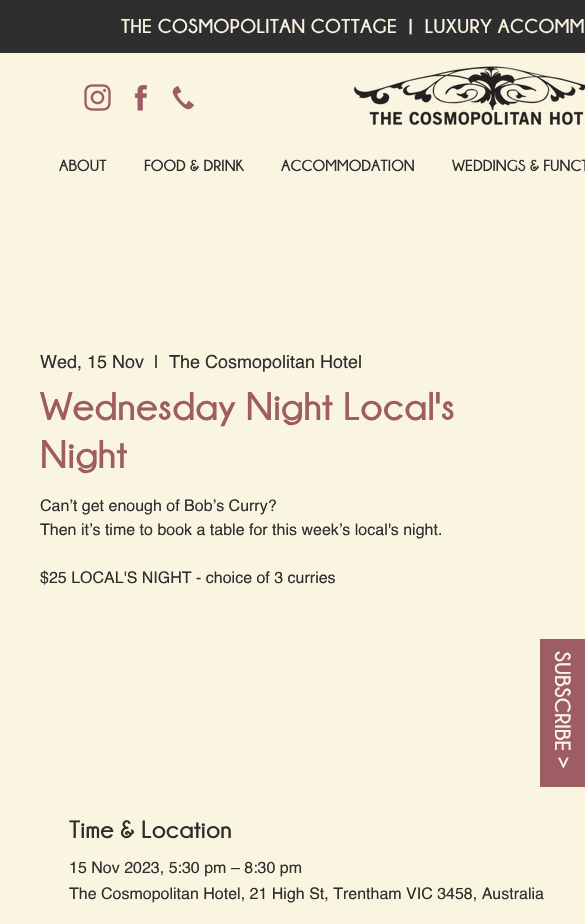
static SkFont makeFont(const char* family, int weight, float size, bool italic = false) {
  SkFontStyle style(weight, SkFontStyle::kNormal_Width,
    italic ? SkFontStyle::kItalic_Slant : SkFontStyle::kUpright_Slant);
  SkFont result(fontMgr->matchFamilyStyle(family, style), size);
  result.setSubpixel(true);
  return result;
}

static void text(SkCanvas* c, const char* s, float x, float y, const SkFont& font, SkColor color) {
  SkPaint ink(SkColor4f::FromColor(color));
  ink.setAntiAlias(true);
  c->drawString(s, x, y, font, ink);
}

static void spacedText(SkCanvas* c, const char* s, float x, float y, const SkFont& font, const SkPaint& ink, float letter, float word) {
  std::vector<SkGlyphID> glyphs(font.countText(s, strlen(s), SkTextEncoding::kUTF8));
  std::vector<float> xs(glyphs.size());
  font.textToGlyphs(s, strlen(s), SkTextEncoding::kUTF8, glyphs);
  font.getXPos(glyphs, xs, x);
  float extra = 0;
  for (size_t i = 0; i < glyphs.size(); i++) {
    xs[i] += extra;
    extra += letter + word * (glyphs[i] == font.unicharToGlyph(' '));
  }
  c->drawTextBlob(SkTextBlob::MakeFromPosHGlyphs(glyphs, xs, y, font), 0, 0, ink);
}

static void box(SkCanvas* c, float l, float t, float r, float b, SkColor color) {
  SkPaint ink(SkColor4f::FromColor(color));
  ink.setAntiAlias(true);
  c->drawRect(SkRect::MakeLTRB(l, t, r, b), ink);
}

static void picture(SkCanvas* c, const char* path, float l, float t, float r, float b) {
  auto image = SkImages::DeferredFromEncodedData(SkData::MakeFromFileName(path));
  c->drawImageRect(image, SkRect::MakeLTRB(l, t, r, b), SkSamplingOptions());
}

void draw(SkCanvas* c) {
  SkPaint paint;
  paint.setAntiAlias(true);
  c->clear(0xfffaf5e1);
  box(c, 0, 0, 585, 53, 0xff2f2e2e);
  SkFont face1 = makeFont("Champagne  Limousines", 700, 20);
  paint.setColor(0xfffaf5e1);
  spacedText(c, "THE COSMOPOLITAN COTTAGE  |  LUXURY ACCOMM", 121, 33, face1, paint, 0.4f, 0);
  picture(c, "img_01.png", 84, 84, 111, 111);
  picture(c, "img_02.png", 134, 84, 147, 111);
  picture(c, "img_03.png", 172, 85, 195, 110);
  picture(c, "img_04.png", 353, 66, 585, 126);
  SkFont face2 = makeFont("Champagne  Limousines", 700, 16);
  text(c, "ABOUT", 59, 171, face2, 0xff2f2e2e);
  text(c, "FOOD & DRINK", 144, 171, face2, 0xff2f2e2e);
  text(c, "ACCOMMODATION", 281, 171, face2, 0xff2f2e2e);
  text(c, "WEDDINGS & FUNCT", 452, 171, face2, 0xff2f2e2e);
  SkFont face3 = makeFont("Helvetica", 400, 18);
  text(c, "Wed, 15 Nov", 40, 368, face3, 0xff2f2e2e);
  text(c, "|", 154, 368, face3, 0xff2f2e2e);
  text(c, "The Cosmopolitan Hotel", 169, 368, face3, 0xff2f2e2e);
  SkFont face4 = makeFont("Champagne  Limousines", 700, 40);
  text(c, "Wednesday Night Local's", 40, 420, face4, 0xff9e5d65);
  text(c, "Night", 40, 468, face4, 0xff9e5d65);
  SkFont face5 = makeFont("Helvetica", 400, 16);
  text(c, "Can’t get enough of Bob’s Curry?", 40, 511, face5, 0xff2f2e2e);
  text(c, "Then it’s time to book a table for this week’s local's night.", 40, 535, face5, 0xff2f2e2e);
  text(c, "$25 LOCAL'S NIGHT - choice of 3 curries", 40, 583, face5, 0xff2f2e2e);
  SkFont face6 = makeFont("Champagne  Limousines", 700, 25);
  text(c, "Time & Location", 69, 838, face6, 0xff2f2e2e);
  text(c, "15 Nov 2023, 5:30 pm – 8:30 pm", 69, 873, face5, 0xff2f2e2e);
  text(c, "The Cosmopolitan Hotel, 21 High St, Trentham VIC 3458, Australia", 69, 899, face5, 0xff2f2e2e);
  box(c, 540, 639, 585, 787, 0xff9e5d65);
  SkFont face7 = makeFont("Champagne  Limousines", 700, 22);
  c->save();
  c->rotate(90, 555, 651);
  text(c, "SUBSCRIBE >", 555, 651, face7, 0xfffaf5e1);
  c->restore();
}
